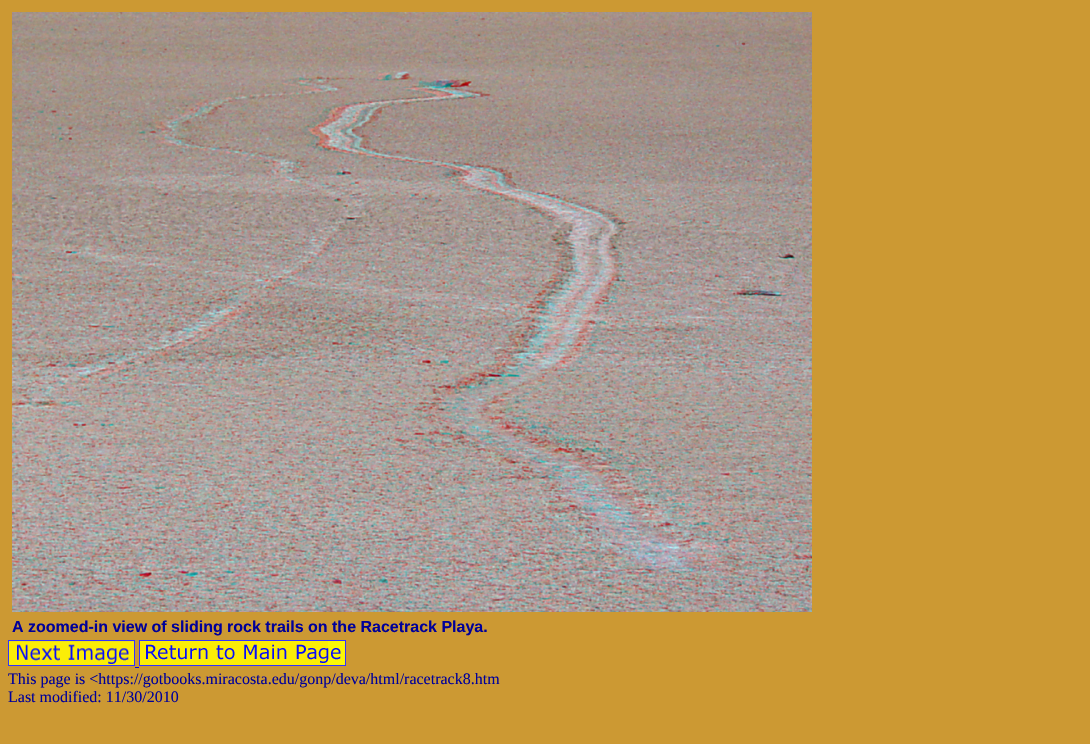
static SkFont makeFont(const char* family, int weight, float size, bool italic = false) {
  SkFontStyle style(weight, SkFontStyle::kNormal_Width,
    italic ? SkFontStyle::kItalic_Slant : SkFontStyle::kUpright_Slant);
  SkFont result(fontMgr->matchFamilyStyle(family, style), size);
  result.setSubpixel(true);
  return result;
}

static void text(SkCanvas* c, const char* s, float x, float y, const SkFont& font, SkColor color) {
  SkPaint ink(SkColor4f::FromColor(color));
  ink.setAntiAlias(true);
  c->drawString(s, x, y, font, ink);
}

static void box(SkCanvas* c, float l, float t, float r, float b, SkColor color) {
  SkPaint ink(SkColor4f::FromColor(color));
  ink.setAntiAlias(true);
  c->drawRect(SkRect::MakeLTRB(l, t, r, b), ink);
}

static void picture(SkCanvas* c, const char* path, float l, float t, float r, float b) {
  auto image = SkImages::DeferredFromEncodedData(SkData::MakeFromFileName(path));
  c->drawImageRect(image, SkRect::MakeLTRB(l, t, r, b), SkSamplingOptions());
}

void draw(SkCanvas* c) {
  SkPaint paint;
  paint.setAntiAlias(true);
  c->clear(0xffcc9933);
  picture(c, "img_01.png", 12, 12, 812, 612);
  SkFont face1 = makeFont("Liberation Sans", 700, 16);
  text(c, "A zoomed-in view of sliding rock trails on the Racetrack Playa.", 12, 632, face1, 0xff000099);
  picture(c, "img_02.png", 8, 640, 135, 666);
  picture(c, "img_03.png", 139, 640, 346, 666);
  box(c, 135, 667, 139, 668, 0xff0000ee);
  SkFont face2 = makeFont("Liberation Serif", 400, 16);
  text(c, "This page is <https://gotbooks.miracosta.edu/gonp/deva/html/racetrack8.htm", 8, 684, face2, 0xff000099);
  text(c, "Last modified: 11/30/2010", 8, 702, face2, 0xff000099);
}
